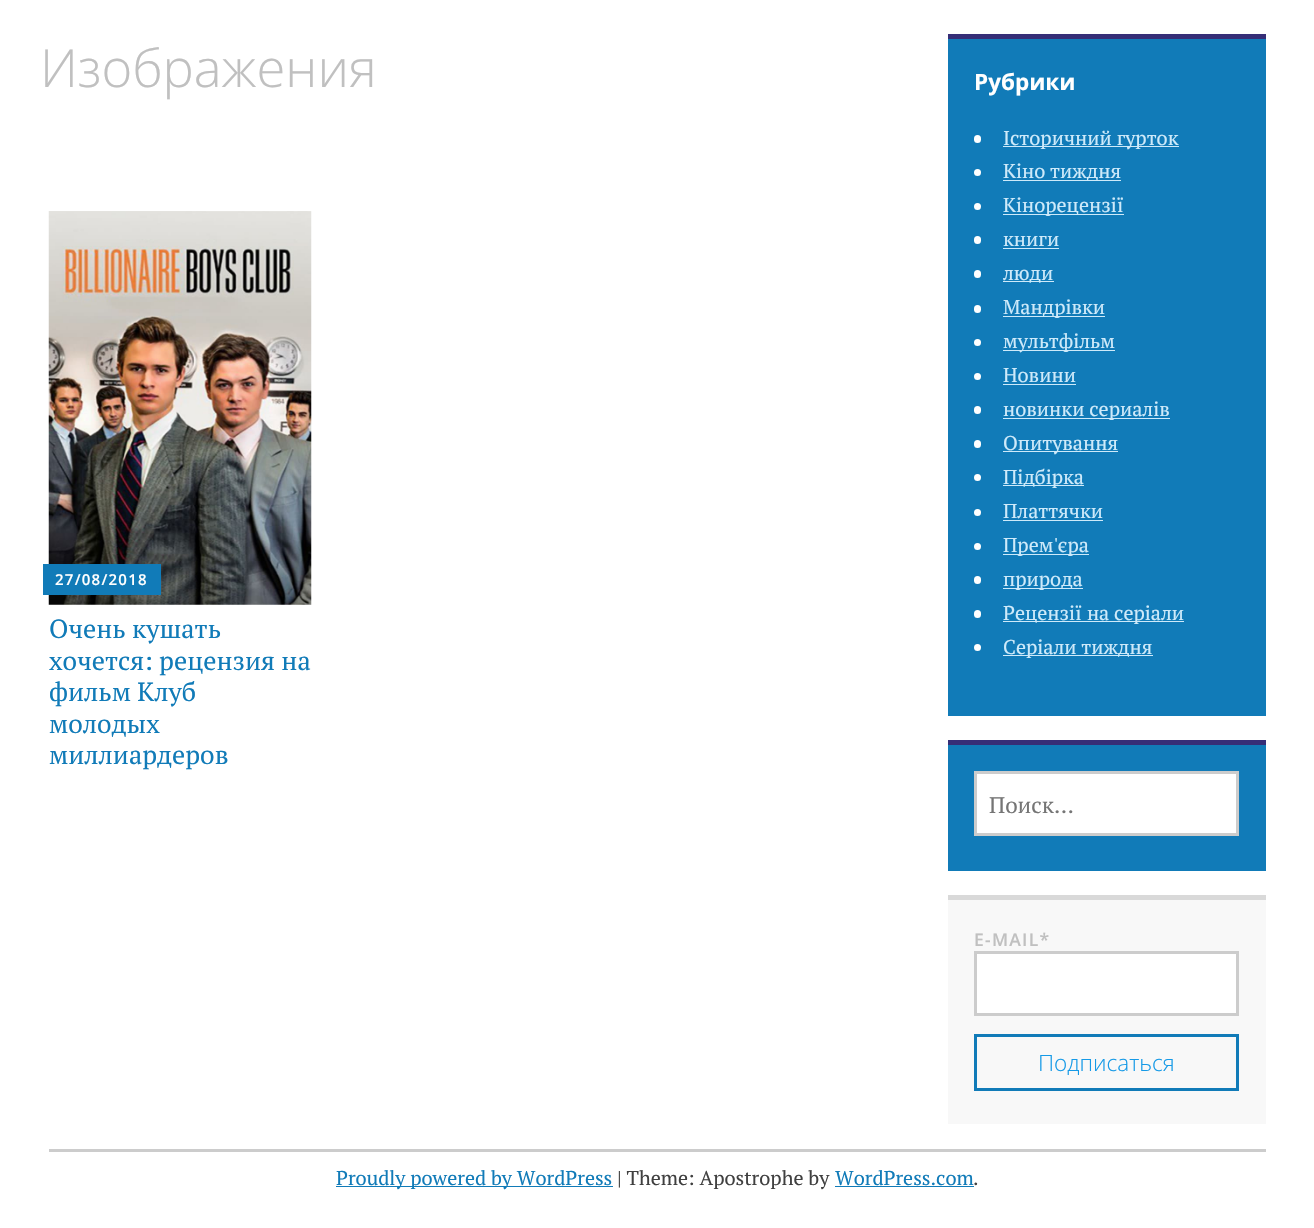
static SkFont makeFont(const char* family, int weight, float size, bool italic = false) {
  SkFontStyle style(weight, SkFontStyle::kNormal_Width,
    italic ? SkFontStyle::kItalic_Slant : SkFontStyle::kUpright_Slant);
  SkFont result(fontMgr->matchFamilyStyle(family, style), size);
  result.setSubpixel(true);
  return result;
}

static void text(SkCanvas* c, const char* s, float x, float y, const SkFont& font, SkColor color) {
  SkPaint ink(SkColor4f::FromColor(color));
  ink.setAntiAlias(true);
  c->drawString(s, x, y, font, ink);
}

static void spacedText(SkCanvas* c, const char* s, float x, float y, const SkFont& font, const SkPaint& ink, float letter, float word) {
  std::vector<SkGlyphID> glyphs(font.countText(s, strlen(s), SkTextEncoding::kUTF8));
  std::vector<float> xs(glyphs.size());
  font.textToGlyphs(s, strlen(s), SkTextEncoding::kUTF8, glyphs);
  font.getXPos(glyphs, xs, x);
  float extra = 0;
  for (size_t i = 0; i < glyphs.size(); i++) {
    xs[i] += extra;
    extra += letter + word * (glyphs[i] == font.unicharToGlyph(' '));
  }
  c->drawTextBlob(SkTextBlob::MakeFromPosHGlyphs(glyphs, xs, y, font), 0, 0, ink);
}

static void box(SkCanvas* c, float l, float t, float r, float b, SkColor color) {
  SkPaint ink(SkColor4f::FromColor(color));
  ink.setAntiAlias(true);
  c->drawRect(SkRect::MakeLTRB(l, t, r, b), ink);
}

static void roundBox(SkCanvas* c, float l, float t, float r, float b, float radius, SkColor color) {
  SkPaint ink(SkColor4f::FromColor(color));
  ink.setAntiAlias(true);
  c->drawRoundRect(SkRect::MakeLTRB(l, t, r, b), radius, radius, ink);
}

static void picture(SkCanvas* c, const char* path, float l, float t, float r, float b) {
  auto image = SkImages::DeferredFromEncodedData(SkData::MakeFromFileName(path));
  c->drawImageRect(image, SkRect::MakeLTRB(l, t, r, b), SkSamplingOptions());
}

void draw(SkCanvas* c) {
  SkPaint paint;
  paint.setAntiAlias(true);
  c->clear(0xffffffff);
  SkFont face1 = makeFont("Open Sans", 300, 52.5f);
  text(c, "Изображения", 40, 87, face1, 0xffc0c0c0);
  picture(c, "img_01.png", 48, 211, 312, 605);
  box(c, 43, 564, 161, 595, 0xff117bb8);
  SkFont face2 = makeFont("Open Sans", 600, 15);
  paint.setColor(0xffffffff);
  spacedText(c, "27/08/2018", 55, 585, face2, paint, 1.25f, 0);
  SkFont face3 = makeFont("PT Serif", 400, 26.25f);
  text(c, "Очень кушать", 49, 638, face3, 0xff117bb8);
  text(c, "хочется: рецензия на", 49, 670, face3, 0xff117bb8);
  text(c, "фильм Клуб", 49, 701, face3, 0xff117bb8);
  text(c, "молодых", 49, 733, face3, 0xff117bb8);
  text(c, "миллиардеров", 49, 764, face3, 0xff117bb8);
  box(c, 948, 39, 1266, 716, 0xff117bb8);
  box(c, 948, 34, 1266, 39, 0xff362e77);
  SkFont face4 = makeFont("Open Sans", 700, 22.5f);
  text(c, "Рубрики", 974, 90, face4, 0xffffffff);
  roundBox(c, 974, 135, 981, 143, 3.5f, 0xffffffff);
  box(c, 1003, 146, 1179, 147, 0xffceeafa);
  SkFont face5 = makeFont("PT Serif", 400, 20);
  text(c, "Історичний гурток", 1003, 145, face5, 0xffceeafa);
  c->drawCircle(977.5f, 172.5f, 3.5f, paint);
  box(c, 1003, 180, 1121, 181, 0xffceeafa);
  text(c, "Кіно тиждня", 1003, 178, face5, 0xffceeafa);
  c->drawCircle(977.5f, 206.5f, 3.5f, paint);
  box(c, 1003, 214, 1124, 215, 0xffceeafa);
  text(c, "Кінорецензії", 1003, 212, face5, 0xffceeafa);
  roundBox(c, 974, 236, 981, 244, 3.5f, 0xffffffff);
  text(c, "книги", 1003, 246, face5, 0xffceeafa);
  box(c, 1003, 248, 1059, 249, 0xffceeafa);
  roundBox(c, 974, 270, 981, 278, 3.5f, 0xffffffff);
  box(c, 1003, 281, 1054, 282, 0xffceeafa);
  text(c, "люди", 1003, 280, face5, 0xffceeafa);
  roundBox(c, 974, 305, 981, 313, 3.5f, 0xffffffff);
  box(c, 1003, 316, 1105, 317, 0xffceeafa);
  text(c, "Мандрівки", 1003, 314, face5, 0xffceeafa);
  c->drawCircle(977.5f, 342.5f, 3.5f, paint);
  box(c, 1003, 350, 1115, 351, 0xffceeafa);
  text(c, "мультфільм", 1003, 348, face5, 0xffceeafa);
  c->drawCircle(977.5f, 376.5f, 3.5f, paint);
  text(c, "Новини", 1003, 382, face5, 0xffceeafa);
  box(c, 1003, 384, 1076, 385, 0xffceeafa);
  roundBox(c, 974, 406, 981, 414, 3.5f, 0xffffffff);
  box(c, 1003, 418, 1170, 419, 0xffceeafa);
  text(c, "новинки сериалів", 1003, 416, face5, 0xffceeafa);
  roundBox(c, 974, 440, 981, 448, 3.5f, 0xffffffff);
  box(c, 1003, 451, 1118, 452, 0xffceeafa);
  text(c, "Опитування", 1003, 450, face5, 0xffceeafa);
  c->drawCircle(977.5f, 477.5f, 3.5f, paint);
  box(c, 1003, 485, 1084, 486, 0xffceeafa);
  text(c, "Підбірка", 1003, 484, face5, 0xffceeafa);
  c->drawCircle(977.5f, 512.5f, 3.5f, paint);
  text(c, "Платтячки", 1003, 518, face5, 0xffceeafa);
  box(c, 1003, 520, 1103, 521, 0xffceeafa);
  c->drawCircle(977.5f, 546.5f, 3.5f, paint);
  box(c, 1003, 554, 1089, 555, 0xffceeafa);
  text(c, "Прем'єра", 1003, 552, face5, 0xffceeafa);
  roundBox(c, 974, 576, 981, 584, 3.5f, 0xffffffff);
  box(c, 1003, 588, 1083, 589, 0xffceeafa);
  text(c, "природа", 1003, 586, face5, 0xffceeafa);
  roundBox(c, 974, 610, 981, 618, 3.5f, 0xffffffff);
  box(c, 1003, 621, 1184, 622, 0xffceeafa);
  text(c, "Рецензії на серіали", 1003, 620, face5, 0xffceeafa);
  c->drawCircle(977.5f, 647.5f, 3.5f, paint);
  box(c, 1003, 655, 1153, 656, 0xffceeafa);
  text(c, "Серіали тиждня", 1003, 654, face5, 0xffceeafa);
  box(c, 948, 745, 1266, 871, 0xff117bb8);
  box(c, 948, 740, 1266, 745, 0xff362e77);
  c->drawRect(SkRect::MakeLTRB(975.5f, 772.5f, 1237.5f, 834.5f), paint);
  paint.setStyle(SkPaint::kStroke_Style);
  paint.setStrokeWidth(3);
  paint.setColor(0xffcccccc);
  c->drawRect(SkRect::MakeLTRB(975.5f, 772.5f, 1237.5f, 834.5f), paint);
  SkFont face6 = makeFont("PT Serif", 400, 22.5f);
  text(c, "Поиск…", 989, 813, face6, 0xff757575);
  box(c, 948, 900, 1266, 1124, 0xfff8f8f8);
  box(c, 948, 895, 1266, 900, 0xffd9d9d9);
  SkFont face7 = makeFont("Open Sans", 600, 17.5f);
  paint.setStyle(SkPaint::kFill_Style);
  paint.setColor(0xffc0c0c0);
  spacedText(c, "E-MAIL*", 974, 946, face7, paint, 1.25f, 0);
  paint.setColor(0xffffffff);
  c->drawRect(SkRect::MakeLTRB(975.5f, 952.5f, 1237.5f, 1014.5f), paint);
  paint.setStyle(SkPaint::kStroke_Style);
  paint.setColor(0xffcccccc);
  c->drawRect(SkRect::MakeLTRB(975.5f, 952.5f, 1237.5f, 1014.5f), paint);
  paint.setColor(0xff117bb8);
  c->drawRect(SkRect::MakeLTRB(975.5f, 1035.5f, 1237.5f, 1089.5f), paint);
  SkFont face8 = makeFont("Open Sans", 300, 22.5f);
  text(c, "Подписаться", 1038, 1071, face8, 0xff159ae7);
  box(c, 49, 1149, 1266, 1152, 0xffcccccc);
  box(c, 336, 1186, 613, 1187, 0xff117bb8);
  text(c, "Proudly powered by WordPress", 336, 1185, face5, 0xff117bb8);
  text(c, "| Theme: Apostrophe by", 617, 1185, face5, 0xff404040);
  text(c, "WordPress.com", 835, 1185, face5, 0xff117bb8);
  box(c, 835, 1186, 974, 1187, 0xff117bb8);
  text(c, ".", 973, 1185, face5, 0xff404040);
}
